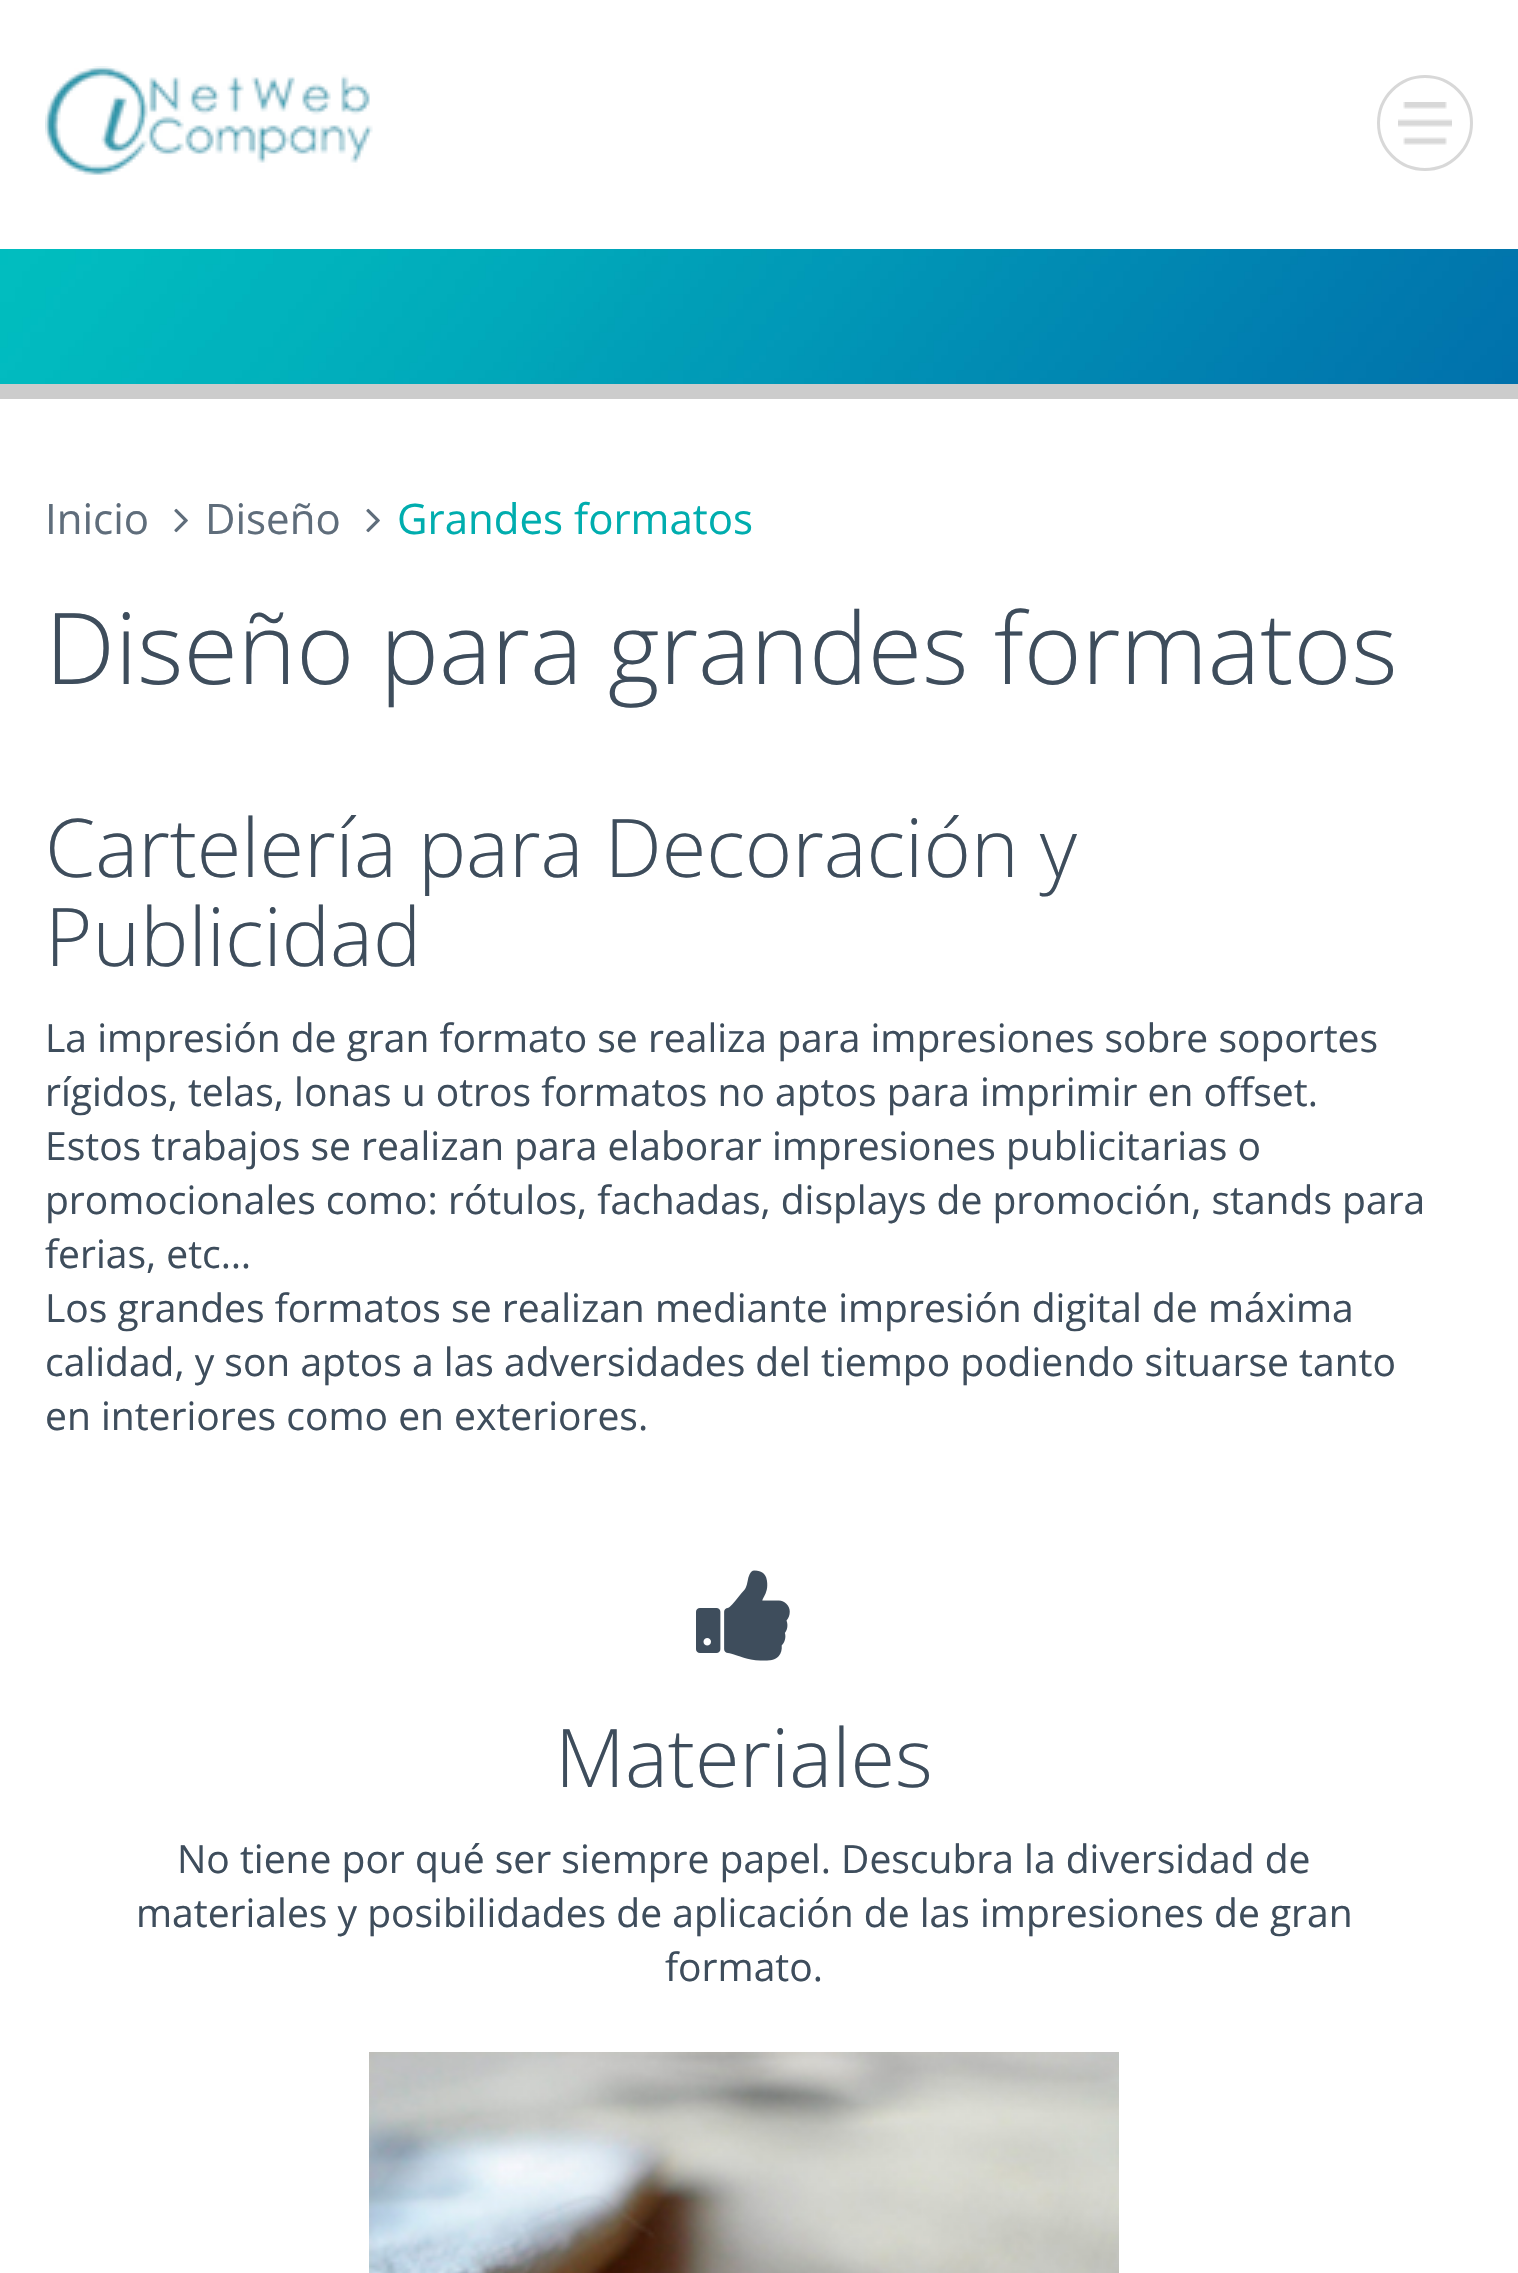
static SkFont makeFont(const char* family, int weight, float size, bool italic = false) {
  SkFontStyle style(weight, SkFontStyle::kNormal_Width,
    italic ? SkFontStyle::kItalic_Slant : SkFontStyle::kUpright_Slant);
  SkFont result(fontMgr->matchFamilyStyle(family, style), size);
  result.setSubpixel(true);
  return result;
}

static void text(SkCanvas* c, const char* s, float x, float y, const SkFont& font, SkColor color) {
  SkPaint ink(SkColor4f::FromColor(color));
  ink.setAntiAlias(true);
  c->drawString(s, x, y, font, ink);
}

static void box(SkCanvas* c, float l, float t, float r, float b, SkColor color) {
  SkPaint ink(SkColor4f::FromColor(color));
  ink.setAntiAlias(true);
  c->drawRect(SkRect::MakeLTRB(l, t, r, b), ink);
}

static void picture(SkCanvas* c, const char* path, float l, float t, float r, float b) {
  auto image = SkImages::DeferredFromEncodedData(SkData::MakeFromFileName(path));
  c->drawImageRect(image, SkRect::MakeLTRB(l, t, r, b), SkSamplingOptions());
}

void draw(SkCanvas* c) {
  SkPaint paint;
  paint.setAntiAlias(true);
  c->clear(0xffffffff);
  picture(c, "img_01.png", 45, 66, 373, 175);
  picture(c, "img_02.png", 1398, 102, 1452, 145);
  paint.setStyle(SkPaint::kStroke_Style);
  paint.setStrokeWidth(3);
  paint.setColor(0xffd8d8d8);
  c->drawCircle(1425, 123, 46.5f, paint);
  picture(c, "img_03.png", 0, 249, 1518, 384);
  box(c, 0, 384, 1518, 399, 0xffcccccc);
  SkFont face1 = makeFont("Open Sans", 400, 42);
  text(c, "Inicio", 45, 534, face1, 0xff5f6d7b);
  picture(c, "img_04.png", 174, 508, 188, 533);
  text(c, "Diseño", 205, 534, face1, 0xff5f6d7b);
  picture(c, "img_04.png", 366, 508, 380, 533);
  text(c, "Grandes formatos", 397, 534, face1, 0xff00adae);
  SkFont face2 = makeFont("Open Sans", 300, 99);
  text(c, "Diseño para grandes formatos", 45, 684, face2, 0xff3e4d5c);
  SkFont face3 = makeFont("Open Sans", 300, 81);
  text(c, "Cartelería para Decoración y", 45, 877, face3, 0xff3e4d5c);
  text(c, "Publicidad", 45, 966, face3, 0xff3e4d5c);
  SkFont face4 = makeFont("Open Sans", 400, 39);
  text(c, "La impresión de gran formato se realiza para impresiones sobre soportes", 45, 1052, face4, 0xff3e4d5c);
  text(c, "rígidos, telas, lonas u otros formatos no aptos para imprimir en offset.", 45, 1106, face4, 0xff3e4d5c);
  text(c, "Estos trabajos se realizan para elaborar impresiones publicitarias o", 45, 1160, face4, 0xff3e4d5c);
  text(c, "promocionales como: rótulos, fachadas, displays de promoción, stands para", 45, 1214, face4, 0xff3e4d5c);
  text(c, "ferias, etc…", 45, 1268, face4, 0xff3e4d5c);
  text(c, "Los grandes formatos se realizan mediante impresión digital de máxima", 45, 1322, face4, 0xff3e4d5c);
  text(c, "calidad, y son aptos a las adversidades del tiempo podiendo situarse tanto", 45, 1376, face4, 0xff3e4d5c);
  text(c, "en interiores como en exteriores.", 45, 1430, face4, 0xff3e4d5c);
  picture(c, "img_05.png", 696, 1570, 790, 1661);
  text(c, "Materiales", 555, 1787, face3, 0xff3e4d5c);
  text(c, "No tiene por qué ser siempre papel. Descubra la diversidad de", 177, 1873, face4, 0xff3e4d5c);
  text(c, "materiales y posibilidades de aplicación de las impresiones de gran", 136, 1927, face4, 0xff3e4d5c);
  text(c, "formato.", 665, 1981, face4, 0xff3e4d5c);
  picture(c, "img_06.png", 369, 2052, 1119, 2273);
}
